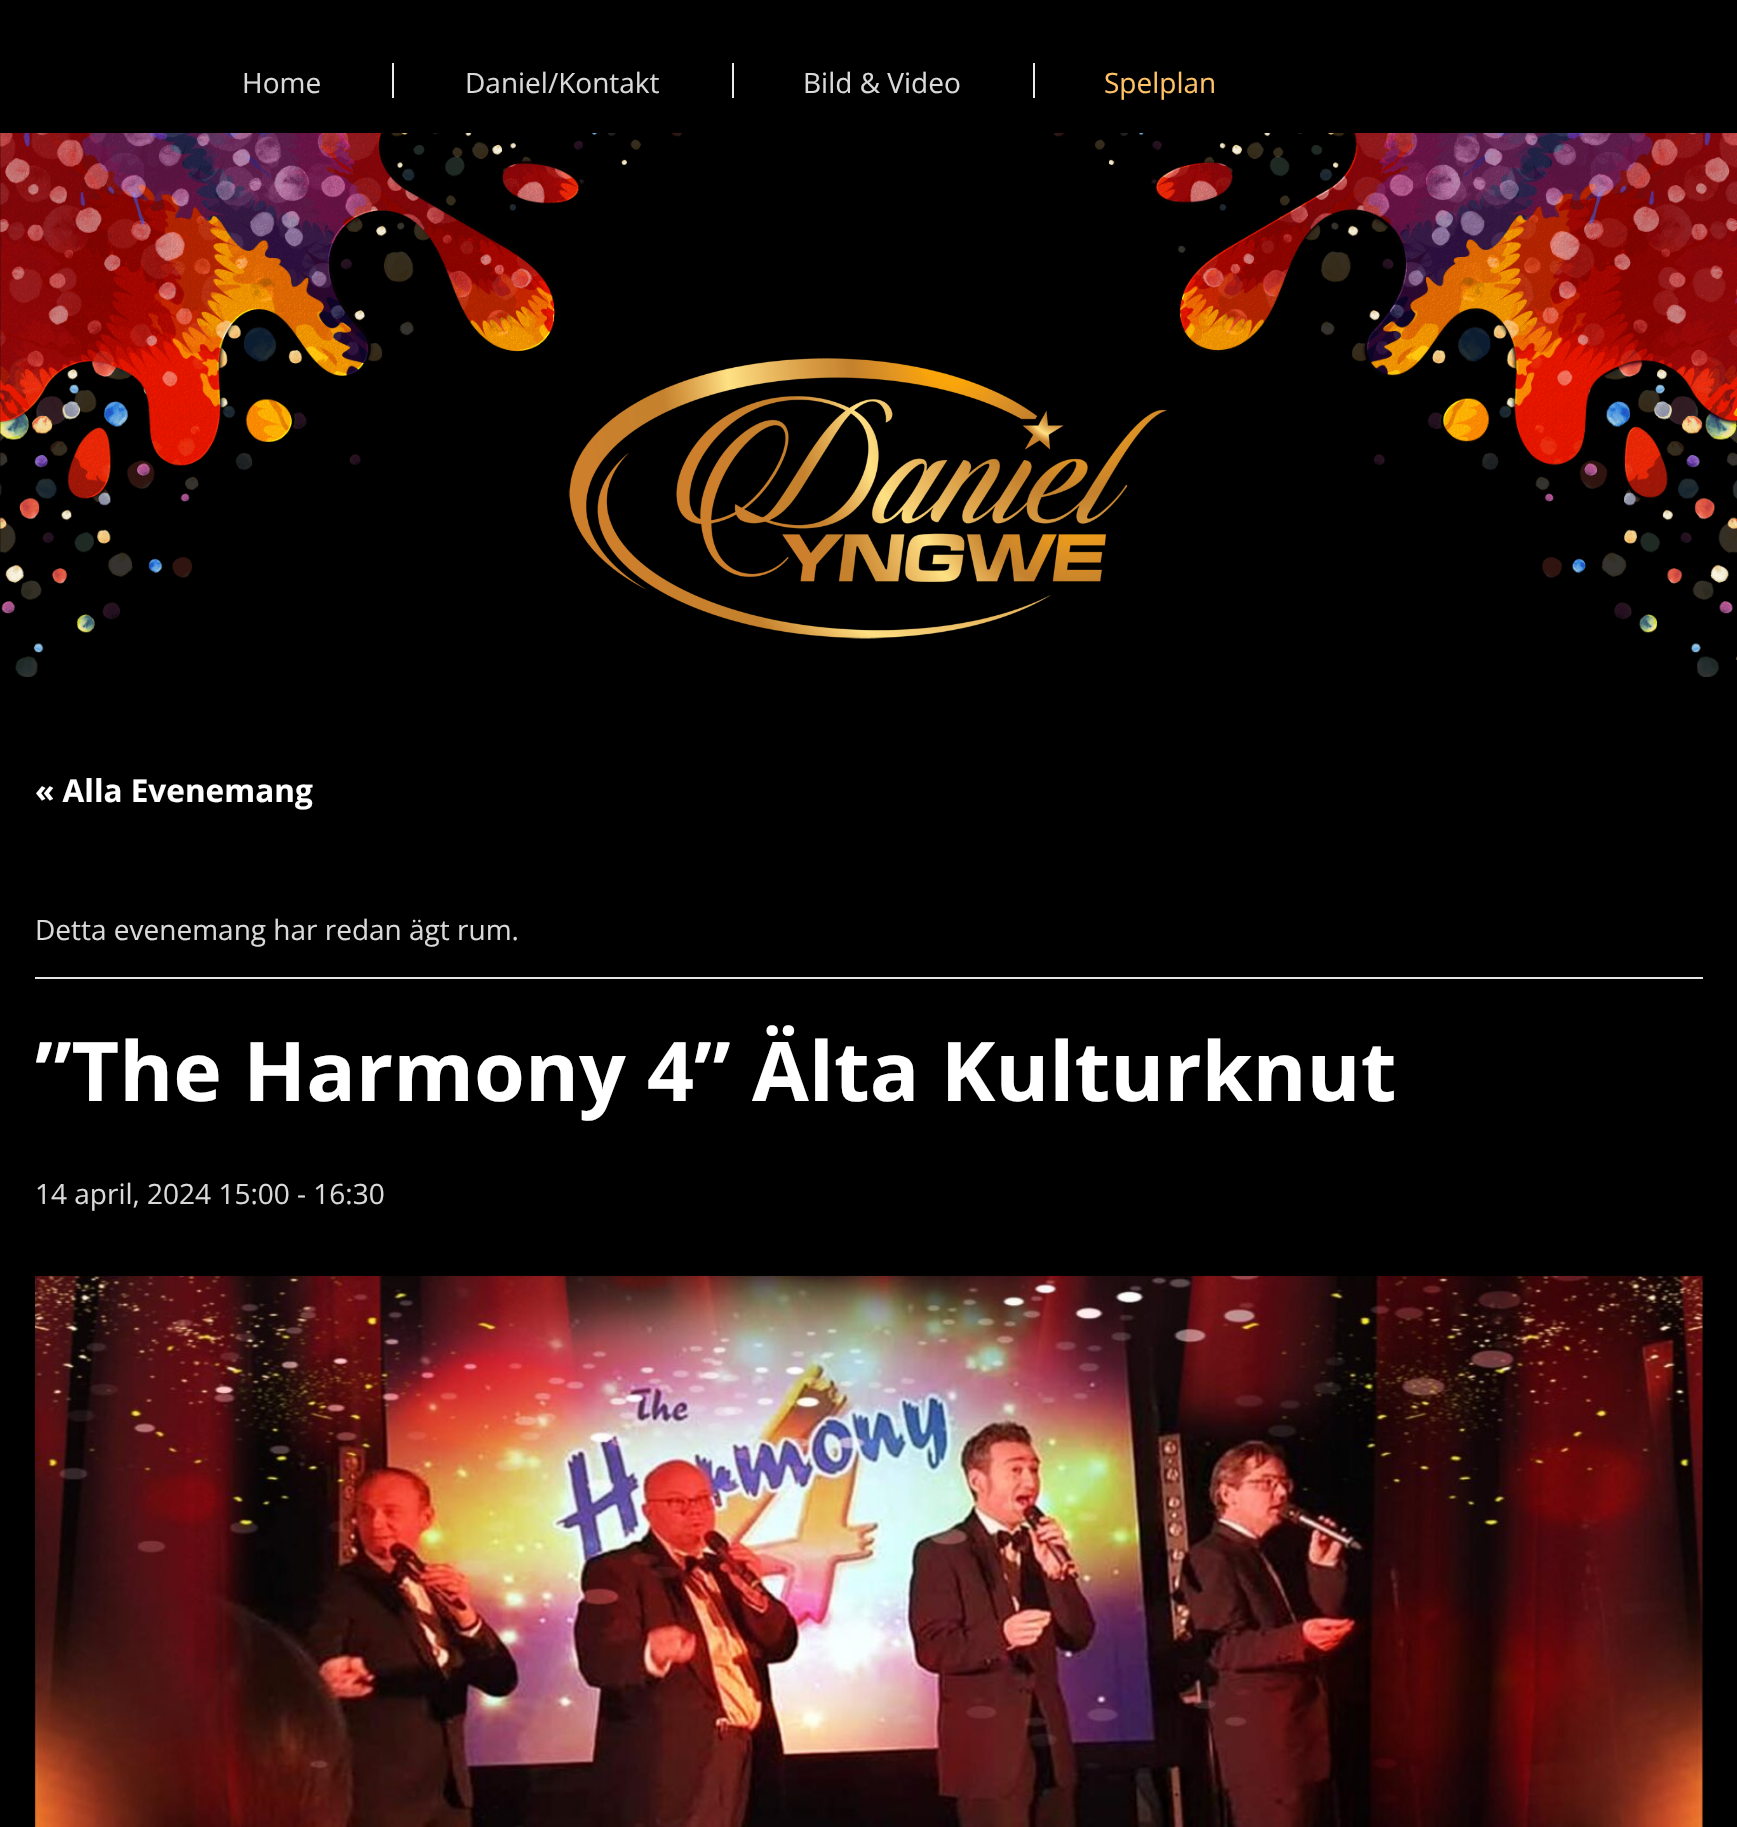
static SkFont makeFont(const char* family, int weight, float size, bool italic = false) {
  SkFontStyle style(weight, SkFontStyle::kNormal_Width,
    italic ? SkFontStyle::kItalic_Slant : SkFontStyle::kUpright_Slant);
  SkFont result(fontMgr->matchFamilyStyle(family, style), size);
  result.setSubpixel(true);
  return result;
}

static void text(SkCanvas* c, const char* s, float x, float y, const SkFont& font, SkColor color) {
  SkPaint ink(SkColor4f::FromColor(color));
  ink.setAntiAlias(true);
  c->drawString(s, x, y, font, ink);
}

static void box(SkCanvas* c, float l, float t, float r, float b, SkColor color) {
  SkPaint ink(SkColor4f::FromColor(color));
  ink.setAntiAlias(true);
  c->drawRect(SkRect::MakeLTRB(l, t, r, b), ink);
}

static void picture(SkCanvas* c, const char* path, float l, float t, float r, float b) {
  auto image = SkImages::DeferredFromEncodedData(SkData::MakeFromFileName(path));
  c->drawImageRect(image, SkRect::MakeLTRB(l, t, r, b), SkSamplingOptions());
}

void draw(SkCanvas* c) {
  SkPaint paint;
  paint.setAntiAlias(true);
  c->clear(0xff000000);
  picture(c, "img_01.png", 0, 133, 1737, 677);
  SkFont face1 = makeFont("Open Sans", 400, 28);
  text(c, "Home", 242, 93, face1, 0xffd9d9d9);
  box(c, 392, 63, 394, 98, 0xffebebeb);
  text(c, "Daniel/Kontakt", 465, 93, face1, 0xffd9d9d9);
  box(c, 732, 63, 734, 98, 0xffebebeb);
  text(c, "Bild & Video", 803, 93, face1, 0xffd9d9d9);
  box(c, 1033, 63, 1035, 98, 0xffebebeb);
  text(c, "Spelplan", 1104, 93, face1, 0xffffc266);
  picture(c, "img_02.png", 568, 358, 1168, 639);
  SkFont face2 = makeFont("Open Sans", 700, 31.5f);
  text(c, "« Alla Evenemang", 35, 802, face2, 0xffffffff);
  box(c, 35, 977, 1703, 979, 0xffe4e4e4);
  text(c, "Detta evenemang har redan ägt rum.", 35, 940, face1, 0xffd9d9d9);
  SkFont face3 = makeFont("Open Sans", 700, 82.25f);
  text(c, "”The Harmony 4” Älta Kulturknut", 35, 1101, face3, 0xffffffff);
  text(c, "14 april, 2024 15:00 - 16:30", 35, 1204, face1, 0xffd9d9d9);
  picture(c, "img_03.png", 35, 1275, 1703, 1827);
}
